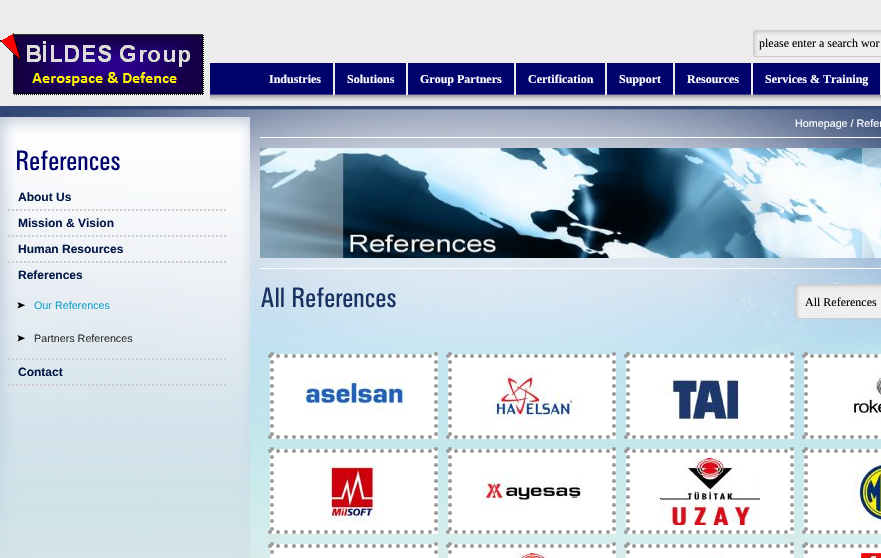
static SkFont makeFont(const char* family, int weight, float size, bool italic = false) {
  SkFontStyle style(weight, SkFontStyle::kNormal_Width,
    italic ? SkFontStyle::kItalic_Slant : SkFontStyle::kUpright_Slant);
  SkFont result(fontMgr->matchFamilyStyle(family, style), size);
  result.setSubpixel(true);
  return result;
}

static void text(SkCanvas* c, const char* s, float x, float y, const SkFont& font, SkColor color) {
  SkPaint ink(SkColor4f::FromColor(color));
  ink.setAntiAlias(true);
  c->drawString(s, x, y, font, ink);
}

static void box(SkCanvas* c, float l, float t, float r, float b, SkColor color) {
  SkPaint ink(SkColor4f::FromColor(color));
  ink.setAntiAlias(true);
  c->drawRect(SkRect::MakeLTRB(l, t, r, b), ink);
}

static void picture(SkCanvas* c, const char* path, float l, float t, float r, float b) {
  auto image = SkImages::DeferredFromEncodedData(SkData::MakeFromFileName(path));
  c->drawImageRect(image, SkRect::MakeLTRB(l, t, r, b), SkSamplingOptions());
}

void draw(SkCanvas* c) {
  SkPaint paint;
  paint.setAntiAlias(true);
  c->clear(0xffececec);
  picture(c, "img_01.png", 0, 104, 881, 558);
  picture(c, "img_02.png", 0, 33, 204, 95);
  picture(c, "img_03.png", 754, 31, 881, 57);
  paint.setStyle(SkPaint::kStroke_Style);
  paint.setStrokeWidth(1);
  paint.setColor(0xffcccccc);
  c->drawRoundRect(SkRect::MakeLTRB(753.5f, 30.5f, 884.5f, 56.5f), 2.5f, 2.5f, paint);
  SkFont face1 = makeFont("Liberation Serif", 400, 12);
  text(c, "please enter a search wor", 759, 47, face1, 0xff000000);
  picture(c, "img_04.png", 210, 63, 881, 101);
  SkFont face2 = makeFont("Liberation Serif", 700, 12);
  text(c, "Industries", 269, 83, face2, 0xffffffff);
  box(c, 333, 62, 335, 95, 0xffececec);
  text(c, "Solutions", 347, 83, face2, 0xffffffff);
  box(c, 406, 62, 408, 95, 0xffececec);
  text(c, "Group Partners", 420, 83, face2, 0xffffffff);
  box(c, 514, 62, 516, 95, 0xffececec);
  text(c, "Certification", 528, 83, face2, 0xffffffff);
  box(c, 605, 62, 607, 95, 0xffececec);
  text(c, "Support", 619, 83, face2, 0xffffffff);
  box(c, 673, 62, 675, 95, 0xffececec);
  text(c, "Resources", 687, 83, face2, 0xffffffff);
  box(c, 751, 62, 753, 95, 0xffececec);
  text(c, "Services & Training", 765, 83, face2, 0xffffffff);
  box(c, 880, 62, 881, 95, 0xffececec);
  picture(c, "img_05.png", 0, 117, 250, 558);
  picture(c, "img_06.png", 17, 150, 120, 171);
  paint.setStrokeWidth(2);
  paint.setPathEffect(SkDashPathEffect::Make({{2, 2}}, 0));
  c->drawPath(SkPathBuilder().moveTo(8, 210).lineTo(228, 210).detach(), paint);
  paint.setPathEffect(nullptr);
  SkFont face3 = makeFont("Liberation Sans", 700, 12);
  text(c, "About Us", 18, 201, face3, 0xff011946);
  paint.setPathEffect(SkDashPathEffect::Make({{2, 2}}, 0));
  c->drawPath(SkPathBuilder().moveTo(8, 236).lineTo(228, 236).detach(), paint);
  paint.setPathEffect(nullptr);
  text(c, "Mission & Vision", 18, 227, face3, 0xff011946);
  paint.setPathEffect(SkDashPathEffect::Make({{2, 2}}, 0));
  c->drawPath(SkPathBuilder().moveTo(8, 262).lineTo(228, 262).detach(), paint);
  paint.setPathEffect(nullptr);
  text(c, "Human Resources", 18, 253, face3, 0xff011946);
  paint.setPathEffect(SkDashPathEffect::Make({{2, 2}}, 0));
  c->drawPath(SkPathBuilder().moveTo(8, 359).lineTo(228, 359).detach(), paint);
  paint.setPathEffect(nullptr);
  text(c, "References", 18, 279, face3, 0xff011946);
  picture(c, "img_07.png", 17, 302, 25, 309);
  SkFont face4 = makeFont("Liberation Sans", 400, 10.75f);
  text(c, "Our References", 34, 309, face4, 0xff14a0c8);
  picture(c, "img_08.png", 17, 335, 25, 342);
  text(c, "Partners References", 34, 342, face4, 0xff333333);
  paint.setPathEffect(SkDashPathEffect::Make({{2, 2}}, 0));
  c->drawPath(SkPathBuilder().moveTo(8, 385).lineTo(228, 385).detach(), paint);
  paint.setPathEffect(nullptr);
  text(c, "Contact", 18, 376, face3, 0xff011946);
  text(c, "Homepage / Refer", 795, 127, face4, 0xffffffff);
  box(c, 260, 137, 881, 138, 0xffffffff);
  picture(c, "img_09.png", 260, 148, 881, 258);
  box(c, 260, 268, 881, 269, 0xffffffff);
  picture(c, "img_10.png", 261, 287, 284, 307);
  picture(c, "img_11.png", 293, 287, 396, 308);
  picture(c, "img_12.png", 796, 285, 881, 319);
  paint.setStrokeWidth(1);
  c->drawRoundRect(SkRect::MakeLTRB(795.5f, 284.5f, 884.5f, 318.5f), 2.5f, 2.5f, paint);
  text(c, "All References", 805, 306, face1, 0xff000000);
  box(c, 270, 354, 438, 439, 0xffffffff);
  paint.setStrokeWidth(4);
  paint.setStrokeCap(SkPaint::kRound_Cap);
  paint.setColor(0xff999999);
  paint.setPathEffect(SkDashPathEffect::Make({{0, 8}}, 0));
  c->drawPath(SkPathBuilder().moveTo(270, 356).lineTo(438, 356).detach(), paint);
  paint.setPathEffect(nullptr);
  paint.setPathEffect(SkDashPathEffect::Make({{0, 8}}, 0));
  c->drawPath(SkPathBuilder().moveTo(436, 354).lineTo(436, 439).detach(), paint);
  paint.setPathEffect(nullptr);
  paint.setPathEffect(SkDashPathEffect::Make({{0, 8}}, 0));
  c->drawPath(SkPathBuilder().moveTo(270, 437).lineTo(438, 437).detach(), paint);
  paint.setPathEffect(nullptr);
  paint.setPathEffect(SkDashPathEffect::Make({{0, 8}}, 0));
  c->drawPath(SkPathBuilder().moveTo(272, 354).lineTo(272, 439).detach(), paint);
  paint.setPathEffect(nullptr);
  picture(c, "img_13.png", 304, 378, 404, 412);
  box(c, 448, 354, 616, 439, 0xffffffff);
  paint.setPathEffect(SkDashPathEffect::Make({{0, 8}}, 0));
  c->drawPath(SkPathBuilder().moveTo(448, 356).lineTo(616, 356).detach(), paint);
  paint.setPathEffect(nullptr);
  paint.setPathEffect(SkDashPathEffect::Make({{0, 8}}, 0));
  c->drawPath(SkPathBuilder().moveTo(614, 354).lineTo(614, 439).detach(), paint);
  paint.setPathEffect(nullptr);
  paint.setPathEffect(SkDashPathEffect::Make({{0, 8}}, 0));
  c->drawPath(SkPathBuilder().moveTo(448, 437).lineTo(616, 437).detach(), paint);
  paint.setPathEffect(nullptr);
  paint.setPathEffect(SkDashPathEffect::Make({{0, 8}}, 0));
  c->drawPath(SkPathBuilder().moveTo(450, 354).lineTo(450, 439).detach(), paint);
  paint.setPathEffect(nullptr);
  picture(c, "img_14.png", 482, 371, 578, 428);
  box(c, 626, 354, 794, 439, 0xffffffff);
  paint.setPathEffect(SkDashPathEffect::Make({{0, 8}}, 0));
  c->drawPath(SkPathBuilder().moveTo(626, 356).lineTo(794, 356).detach(), paint);
  paint.setPathEffect(nullptr);
  paint.setPathEffect(SkDashPathEffect::Make({{0, 8}}, 0));
  c->drawPath(SkPathBuilder().moveTo(792, 354).lineTo(792, 439).detach(), paint);
  paint.setPathEffect(nullptr);
  paint.setPathEffect(SkDashPathEffect::Make({{0, 8}}, 0));
  c->drawPath(SkPathBuilder().moveTo(626, 437).lineTo(794, 437).detach(), paint);
  paint.setPathEffect(nullptr);
  paint.setPathEffect(SkDashPathEffect::Make({{0, 8}}, 0));
  c->drawPath(SkPathBuilder().moveTo(628, 354).lineTo(628, 439).detach(), paint);
  paint.setPathEffect(nullptr);
  picture(c, "img_15.png", 660, 378, 741, 427);
  box(c, 804, 354, 881, 439, 0xffffffff);
  paint.setPathEffect(SkDashPathEffect::Make({{0, 8}}, 0));
  c->drawPath(SkPathBuilder().moveTo(804, 356).lineTo(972, 356).detach(), paint);
  paint.setPathEffect(nullptr);
  paint.setPathEffect(SkDashPathEffect::Make({{0, 8}}, 0));
  c->drawPath(SkPathBuilder().moveTo(804, 437).lineTo(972, 437).detach(), paint);
  paint.setPathEffect(nullptr);
  paint.setPathEffect(SkDashPathEffect::Make({{0, 8}}, 0));
  c->drawPath(SkPathBuilder().moveTo(806, 354).lineTo(806, 439).detach(), paint);
  paint.setPathEffect(nullptr);
  picture(c, "img_16.png", 854, 375, 881, 419);
  box(c, 270, 449, 438, 534, 0xffffffff);
  paint.setPathEffect(SkDashPathEffect::Make({{0, 8}}, 0));
  c->drawPath(SkPathBuilder().moveTo(270, 451).lineTo(438, 451).detach(), paint);
  paint.setPathEffect(nullptr);
  paint.setPathEffect(SkDashPathEffect::Make({{0, 8}}, 0));
  c->drawPath(SkPathBuilder().moveTo(436, 449).lineTo(436, 534).detach(), paint);
  paint.setPathEffect(nullptr);
  paint.setPathEffect(SkDashPathEffect::Make({{0, 8}}, 0));
  c->drawPath(SkPathBuilder().moveTo(270, 532).lineTo(438, 532).detach(), paint);
  paint.setPathEffect(nullptr);
  paint.setPathEffect(SkDashPathEffect::Make({{0, 8}}, 0));
  c->drawPath(SkPathBuilder().moveTo(272, 449).lineTo(272, 534).detach(), paint);
  paint.setPathEffect(nullptr);
  picture(c, "img_17.png", 320, 458, 384, 522);
  box(c, 448, 449, 616, 534, 0xffffffff);
  paint.setPathEffect(SkDashPathEffect::Make({{0, 8}}, 0));
  c->drawPath(SkPathBuilder().moveTo(448, 451).lineTo(616, 451).detach(), paint);
  paint.setPathEffect(nullptr);
  paint.setPathEffect(SkDashPathEffect::Make({{0, 8}}, 0));
  c->drawPath(SkPathBuilder().moveTo(614, 449).lineTo(614, 534).detach(), paint);
  paint.setPathEffect(nullptr);
  paint.setPathEffect(SkDashPathEffect::Make({{0, 8}}, 0));
  c->drawPath(SkPathBuilder().moveTo(448, 532).lineTo(616, 532).detach(), paint);
  paint.setPathEffect(nullptr);
  paint.setPathEffect(SkDashPathEffect::Make({{0, 8}}, 0));
  c->drawPath(SkPathBuilder().moveTo(450, 449).lineTo(450, 534).detach(), paint);
  paint.setPathEffect(nullptr);
  picture(c, "img_18.png", 482, 474, 582, 506);
  box(c, 626, 449, 794, 534, 0xffffffff);
  paint.setPathEffect(SkDashPathEffect::Make({{0, 8}}, 0));
  c->drawPath(SkPathBuilder().moveTo(626, 451).lineTo(794, 451).detach(), paint);
  paint.setPathEffect(nullptr);
  paint.setPathEffect(SkDashPathEffect::Make({{0, 8}}, 0));
  c->drawPath(SkPathBuilder().moveTo(792, 449).lineTo(792, 534).detach(), paint);
  paint.setPathEffect(nullptr);
  paint.setPathEffect(SkDashPathEffect::Make({{0, 8}}, 0));
  c->drawPath(SkPathBuilder().moveTo(626, 532).lineTo(794, 532).detach(), paint);
  paint.setPathEffect(nullptr);
  paint.setPathEffect(SkDashPathEffect::Make({{0, 8}}, 0));
  c->drawPath(SkPathBuilder().moveTo(628, 449).lineTo(628, 534).detach(), paint);
  paint.setPathEffect(nullptr);
  picture(c, "img_19.png", 660, 458, 760, 525);
  box(c, 804, 449, 881, 534, 0xffffffff);
  paint.setPathEffect(SkDashPathEffect::Make({{0, 8}}, 0));
  c->drawPath(SkPathBuilder().moveTo(804, 451).lineTo(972, 451).detach(), paint);
  paint.setPathEffect(nullptr);
  paint.setPathEffect(SkDashPathEffect::Make({{0, 8}}, 0));
  c->drawPath(SkPathBuilder().moveTo(804, 532).lineTo(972, 532).detach(), paint);
  paint.setPathEffect(nullptr);
  paint.setPathEffect(SkDashPathEffect::Make({{0, 8}}, 0));
  c->drawPath(SkPathBuilder().moveTo(806, 449).lineTo(806, 534).detach(), paint);
  paint.setPathEffect(nullptr);
  picture(c, "img_20.png", 853, 458, 881, 523);
  box(c, 270, 544, 438, 558, 0xffffffff);
  paint.setPathEffect(SkDashPathEffect::Make({{0, 8}}, 0));
  c->drawPath(SkPathBuilder().moveTo(270, 546).lineTo(438, 546).detach(), paint);
  paint.setPathEffect(nullptr);
  paint.setPathEffect(SkDashPathEffect::Make({{0, 8}}, 0));
  c->drawPath(SkPathBuilder().moveTo(436, 544).lineTo(436, 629).detach(), paint);
  paint.setPathEffect(nullptr);
  paint.setPathEffect(SkDashPathEffect::Make({{0, 8}}, 0));
  c->drawPath(SkPathBuilder().moveTo(272, 544).lineTo(272, 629).detach(), paint);
  paint.setPathEffect(nullptr);
  box(c, 448, 544, 616, 558, 0xffffffff);
  paint.setPathEffect(SkDashPathEffect::Make({{0, 8}}, 0));
  c->drawPath(SkPathBuilder().moveTo(448, 546).lineTo(616, 546).detach(), paint);
  paint.setPathEffect(nullptr);
  paint.setPathEffect(SkDashPathEffect::Make({{0, 8}}, 0));
  c->drawPath(SkPathBuilder().moveTo(614, 544).lineTo(614, 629).detach(), paint);
  paint.setPathEffect(nullptr);
  paint.setPathEffect(SkDashPathEffect::Make({{0, 8}}, 0));
  c->drawPath(SkPathBuilder().moveTo(450, 544).lineTo(450, 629).detach(), paint);
  paint.setPathEffect(nullptr);
  picture(c, "img_21.png", 514, 553, 554, 558);
  box(c, 626, 544, 794, 558, 0xffffffff);
  paint.setPathEffect(SkDashPathEffect::Make({{0, 8}}, 0));
  c->drawPath(SkPathBuilder().moveTo(626, 546).lineTo(794, 546).detach(), paint);
  paint.setPathEffect(nullptr);
  paint.setPathEffect(SkDashPathEffect::Make({{0, 8}}, 0));
  c->drawPath(SkPathBuilder().moveTo(792, 544).lineTo(792, 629).detach(), paint);
  paint.setPathEffect(nullptr);
  paint.setPathEffect(SkDashPathEffect::Make({{0, 8}}, 0));
  c->drawPath(SkPathBuilder().moveTo(628, 544).lineTo(628, 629).detach(), paint);
  paint.setPathEffect(nullptr);
  picture(c, "img_22.png", 693, 553, 724, 558);
  box(c, 804, 544, 881, 558, 0xffffffff);
  paint.setPathEffect(SkDashPathEffect::Make({{0, 8}}, 0));
  c->drawPath(SkPathBuilder().moveTo(804, 546).lineTo(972, 546).detach(), paint);
  paint.setPathEffect(nullptr);
  paint.setPathEffect(SkDashPathEffect::Make({{0, 8}}, 0));
  c->drawPath(SkPathBuilder().moveTo(806, 544).lineTo(806, 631).detach(), paint);
  paint.setPathEffect(nullptr);
  picture(c, "img_23.png", 861, 553, 881, 558);
}
